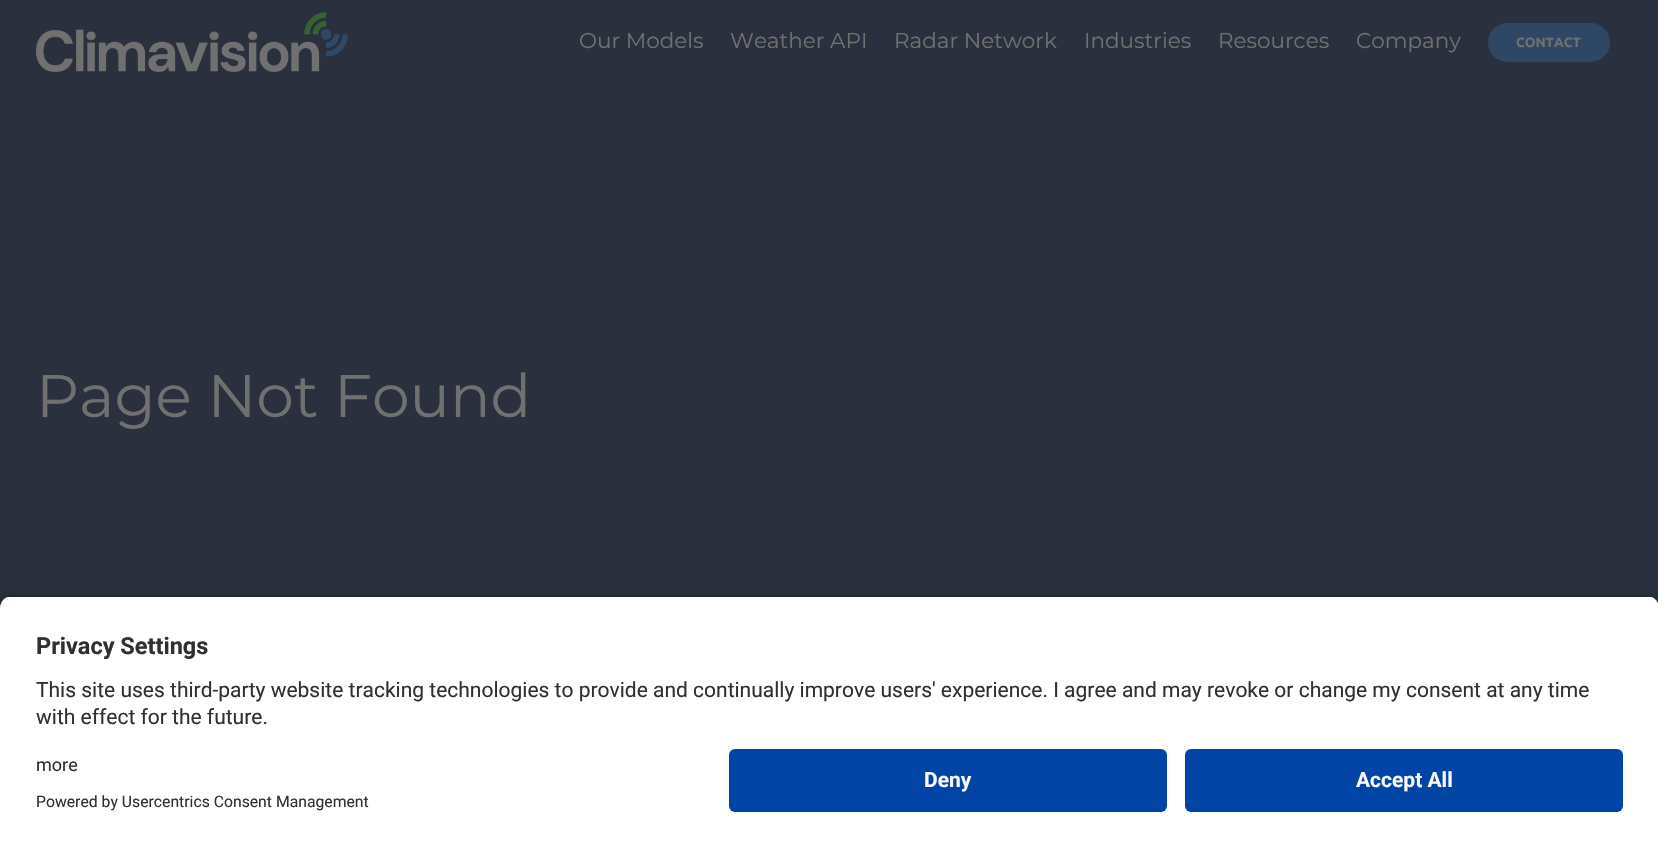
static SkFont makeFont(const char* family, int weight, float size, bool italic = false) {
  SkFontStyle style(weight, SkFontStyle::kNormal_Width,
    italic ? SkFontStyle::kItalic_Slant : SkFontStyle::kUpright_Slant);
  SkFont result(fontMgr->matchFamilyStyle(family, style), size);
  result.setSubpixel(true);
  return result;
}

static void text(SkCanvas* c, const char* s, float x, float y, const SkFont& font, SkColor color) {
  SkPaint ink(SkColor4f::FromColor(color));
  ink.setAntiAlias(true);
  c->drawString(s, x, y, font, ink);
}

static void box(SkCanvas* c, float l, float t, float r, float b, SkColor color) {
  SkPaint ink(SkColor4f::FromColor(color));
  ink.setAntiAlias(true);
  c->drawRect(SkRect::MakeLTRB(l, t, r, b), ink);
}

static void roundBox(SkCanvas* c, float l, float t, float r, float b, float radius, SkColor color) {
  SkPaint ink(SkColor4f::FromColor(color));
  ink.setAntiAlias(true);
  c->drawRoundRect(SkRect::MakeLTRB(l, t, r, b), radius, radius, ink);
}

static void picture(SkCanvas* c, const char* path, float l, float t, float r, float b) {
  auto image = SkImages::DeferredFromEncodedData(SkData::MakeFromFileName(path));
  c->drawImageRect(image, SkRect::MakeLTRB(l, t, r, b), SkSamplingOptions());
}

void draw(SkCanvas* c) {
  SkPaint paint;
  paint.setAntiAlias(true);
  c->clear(0xff2a303d);
  picture(c, "img_01.png", 36, 12, 348, 72);
  SkFont face1 = makeFont("Montserrat", 400, 21.5f);
  text(c, "Our Models", 579, 48, face1, 0xff707070);
  text(c, "Weather API", 730, 48, face1, 0xff707070);
  text(c, "Radar Network", 894, 48, face1, 0xff707070);
  text(c, "Industries", 1084, 48, face1, 0xff707070);
  text(c, "Resources", 1218, 48, face1, 0xff707070);
  text(c, "Company", 1356, 48, face1, 0xff707070);
  roundBox(c, 1488, 23, 1610, 62, 19.5f, 0xff2d4765);
  SkFont face2 = makeFont("Ubuntu", 700, 13.5f);
  text(c, "CONTACT", 1516, 47, face2, 0xff707070);
  SkFont face3 = makeFont("Montserrat", 400, 60);
  text(c, "Page Not Found", 36, 417, face3, 0xff707070);
  paint.setColor(0xcc000000);
  paint.setMaskFilter(SkMaskFilter::MakeBlur(kNormal_SkBlurStyle, 5));
  c->drawRoundRect(SkRect::MakeLTRB(0, 600, 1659, 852), 12, 12, paint);
  paint.setMaskFilter(nullptr);
  c->save();
  c->clipPath(SkPathBuilder().moveTo(12, 596).lineTo(1647, 596).cubicTo(1653.5f, 596, 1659, 601.5f, 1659, 608).lineTo(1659, 737).lineTo(0, 737).lineTo(0, 608).cubicTo(0, 601.5f, 5.5f, 596, 12, 596).close().detach(), true);
  box(c, 0, 597, 1658, 737, 0xffffffff);
  c->restore();
  SkFont face4 = makeFont("Roboto", 700, 23.5f);
  text(c, "Privacy Settings", 36, 654, face4, 0xff303030);
  SkFont face5 = makeFont("Roboto", 400, 21);
  text(c, "This site uses third-party website tracking technologies to provide and continually improve users' experience. I agree and may revoke or change my consent at any time", 36, 697, face5, 0xff303030);
  text(c, "with effect for the future.", 36, 724, face5, 0xff303030);
  box(c, 0, 737, 1658, 847, 0xffffffff);
  SkFont face6 = makeFont("Roboto", 400, 18);
  text(c, "more", 36, 771, face6, 0xff303030);
  SkFont face7 = makeFont("Roboto", 400, 15.75f);
  text(c, "Powered by Usercentrics Consent Management", 36, 807, face7, 0xff303030);
  roundBox(c, 729, 749, 1167, 812, 6, 0xff0045a5);
  SkFont face8 = makeFont("Roboto", 700, 21);
  text(c, "Deny", 924, 787, face8, 0xfffafafa);
  roundBox(c, 1185, 749, 1623, 812, 6, 0xff0045a5);
  text(c, "Accept All", 1356, 787, face8, 0xfffafafa);
}
